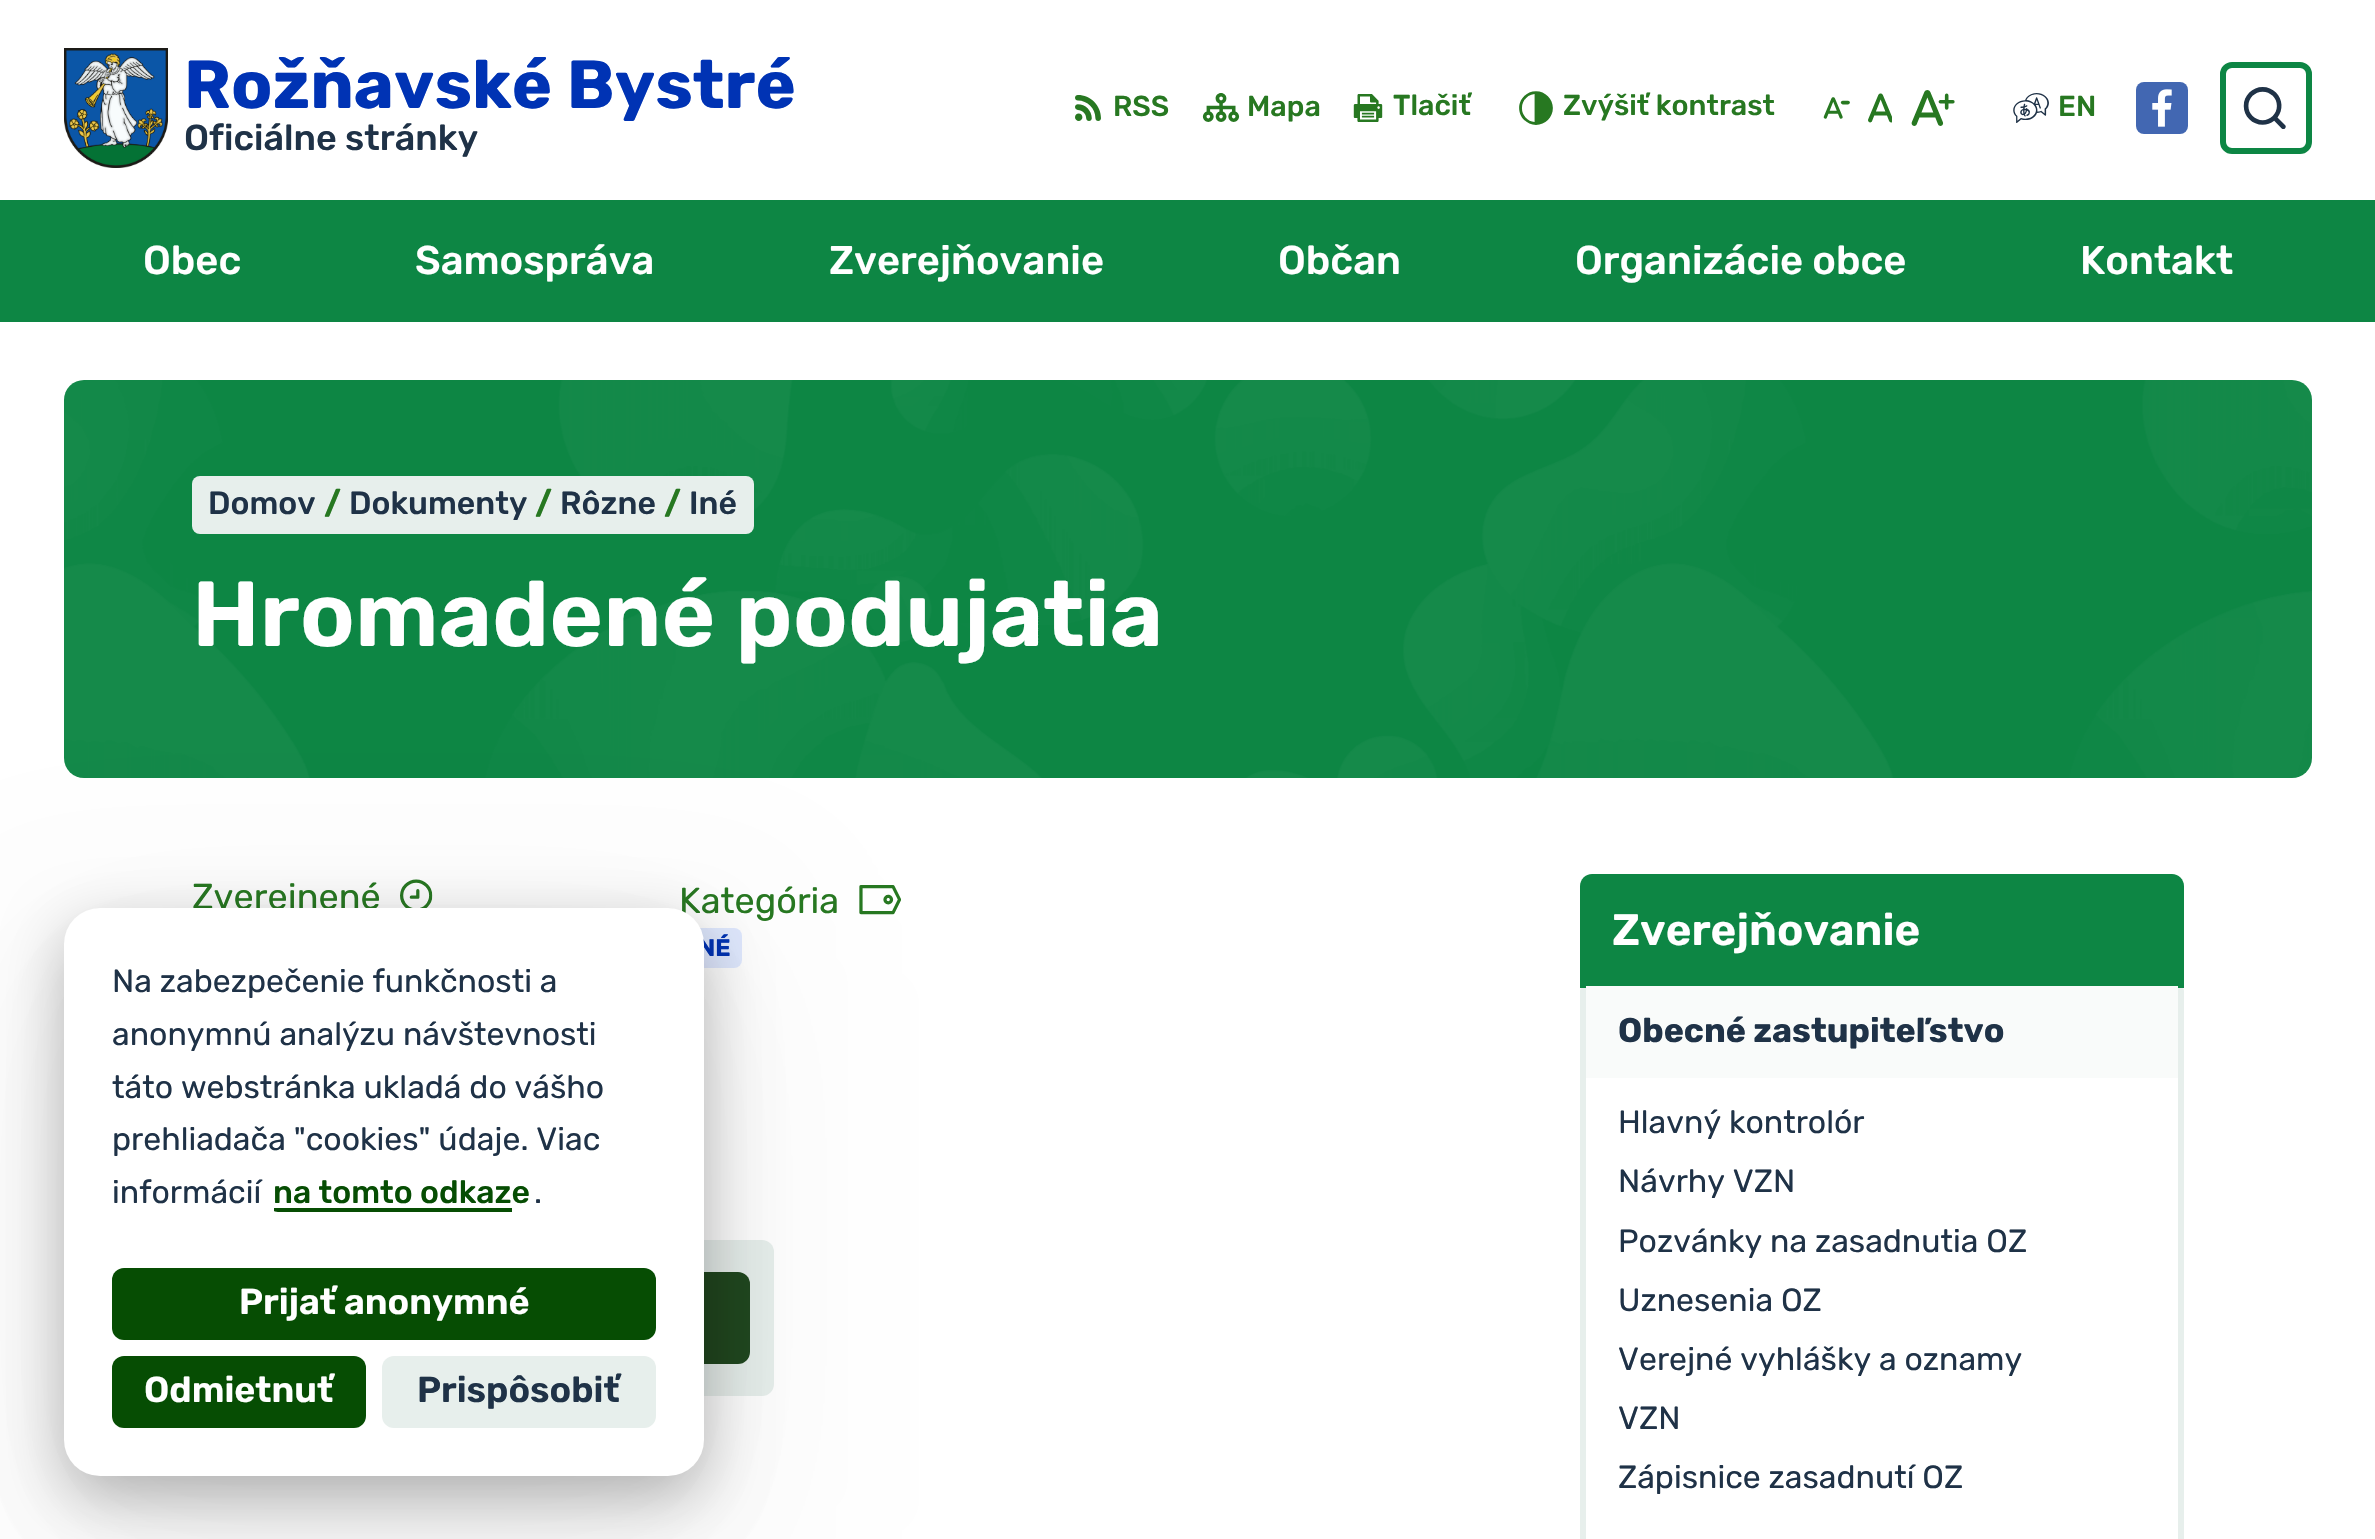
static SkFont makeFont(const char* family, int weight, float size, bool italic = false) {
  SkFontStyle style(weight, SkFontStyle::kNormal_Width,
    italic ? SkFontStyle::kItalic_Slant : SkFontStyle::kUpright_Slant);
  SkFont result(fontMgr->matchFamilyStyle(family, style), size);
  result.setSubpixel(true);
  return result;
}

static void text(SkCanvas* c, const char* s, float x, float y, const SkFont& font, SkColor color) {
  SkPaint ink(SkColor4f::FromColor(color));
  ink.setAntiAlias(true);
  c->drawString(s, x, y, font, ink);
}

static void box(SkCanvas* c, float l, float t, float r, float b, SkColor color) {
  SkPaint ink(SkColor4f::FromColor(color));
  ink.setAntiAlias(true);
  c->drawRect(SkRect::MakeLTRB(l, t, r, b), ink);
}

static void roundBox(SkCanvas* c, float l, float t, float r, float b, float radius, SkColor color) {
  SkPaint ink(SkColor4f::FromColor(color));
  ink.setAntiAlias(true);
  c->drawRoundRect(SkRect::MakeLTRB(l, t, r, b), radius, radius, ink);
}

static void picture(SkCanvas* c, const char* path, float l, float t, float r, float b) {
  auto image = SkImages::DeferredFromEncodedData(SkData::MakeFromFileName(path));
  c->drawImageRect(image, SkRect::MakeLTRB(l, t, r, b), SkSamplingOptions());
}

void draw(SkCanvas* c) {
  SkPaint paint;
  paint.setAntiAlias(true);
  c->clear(0xffffffff);
  picture(c, "img_01.png", 64, 48, 168, 168);
  SkFont face1 = makeFont("Rubik", 700, 68);
  text(c, "Rožňavské Bystré", 184, 108, face1, 0xff0033b4);
  SkFont face2 = makeFont("Rubik", 500, 36);
  text(c, "Oficiálne stránky", 184, 150, face2, 0xff1f3247);
  picture(c, "img_02.png", 1075, 95, 1101, 121);
  SkFont face3 = makeFont("Rubik", 500, 28.75f);
  text(c, "RSS", 1113, 116, face3, 0xff277821);
  picture(c, "img_03.png", 1202, 93, 1240, 122);
  text(c, "Mapa", 1247, 116, face3, 0xff277821);
  picture(c, "img_04.png", 1353, 94, 1383, 122);
  text(c, "Tlačiť", 1393, 115, face3, 0xff277821);
  picture(c, "img_05.png", 1519, 91, 1553, 125);
  text(c, "Zvýšiť kontrast", 1563, 115, face3, 0xff277821);
  picture(c, "img_06.png", 1823, 97, 1850, 119);
  picture(c, "img_07.png", 1868, 93, 1892, 123);
  picture(c, "img_08.png", 1911, 90, 1955, 126);
  picture(c, "img_09.png", 2013, 93, 2049, 123);
  text(c, "EN", 2058, 116, face3, 0xff277821);
  roundBox(c, 2136, 82, 2188, 134, 8, 0xff4267b2);
  picture(c, "img_10.png", 2152, 89, 2172, 127);
  paint.setStyle(SkPaint::kStroke_Style);
  paint.setStrokeWidth(6);
  paint.setColor(0xff0d8644);
  c->drawRoundRect(SkRect::MakeLTRB(2223, 65, 2309, 151), 9, 9, paint);
  picture(c, "img_11.png", 2243, 87, 2286, 129);
  box(c, 0, 200, 2375, 322, 0xff0d8644);
  SkFont face4 = makeFont("Rubik", 500, 40);
  text(c, "Obec", 143, 274, face4, 0xffffffff);
  text(c, "Samospráva", 415, 274, face4, 0xffffffff);
  text(c, "Zverejňovanie", 829, 274, face4, 0xffffffff);
  text(c, "Občan", 1278, 274, face4, 0xffffffff);
  text(c, "Organizácie obce", 1575, 274, face4, 0xffffffff);
  text(c, "Kontakt", 2080, 274, face4, 0xffffffff);
  roundBox(c, 64, 380, 2312, 778, 20, 0xff0d8644);
  picture(c, "img_12.png", 64, 380, 2312, 778);
  roundBox(c, 192, 476, 754, 534, 8, 0xffe7efec);
  SkFont face5 = makeFont("Rubik", 500, 32);
  text(c, "Domov", 208, 514, face5, 0xff1f3247);
  SkFont face6 = makeFont("Rubik", 700, 32);
  text(c, "/", 324, 514, face6, 0xff277821);
  text(c, "Dokumenty", 349, 514, face5, 0xff1f3247);
  text(c, "/", 535, 514, face6, 0xff277821);
  text(c, "Rôzne", 560, 514, face5, 0xff1f3247);
  text(c, "/", 664, 514, face6, 0xff277821);
  text(c, "Iné", 689, 514, face5, 0xff1f3247);
  SkFont face7 = makeFont("Rubik", 600, 92);
  text(c, "Hromadené podujatia", 192, 646, face7, 0xffffffff);
  SkFont face8 = makeFont("Rubik", 400, 36);
  text(c, "Zverejnené", 192, 909, face8, 0xff277821);
  picture(c, "img_13.png", 400, 879, 433, 908);
  text(c, "Kategória", 679, 913, face8, 0xff277821);
  picture(c, "img_14.png", 859, 885, 901, 915);
  roundBox(c, 678, 928, 742, 968, 8, 0xffe0e9ff);
  SkFont face9 = makeFont("Rubik", 700, 24);
  text(c, "NÉ", 698, 956, face9, 0xff0033b4);
  roundBox(c, 192, 1240, 774, 1396, 12, 0xffe7efec);
  roundBox(c, 626, 1272, 750, 1364, 12, 0xff21471f);
  paint.setColor(0xffe7efec);
  c->drawRoundRect(SkRect::MakeLTRB(1583, 983, 2181, 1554), 9, 9, paint);
  paint.setStyle(SkPaint::kFill_Style);
  paint.setColor(0xff0d8644);
  c->drawPath(SkPathBuilder().moveTo(1592, 874).lineTo(2172, 874).cubicTo(2178.5f, 874, 2184, 879.5f, 2184, 886).lineTo(2184, 988).lineTo(1580, 988).lineTo(1580, 886).cubicTo(1580, 879.5f, 1585.5f, 874, 1592, 874).close().detach(), paint);
  SkFont face10 = makeFont("Rubik", 600, 44);
  text(c, "Zverejňovanie", 1612, 945, face10, 0xffffffff);
  box(c, 1586, 986, 2178, 1078, 0xfff9fbfa);
  SkFont face11 = makeFont("Rubik", 700, 34);
  text(c, "Obecné zastupiteľstvo", 1618, 1042, face11, 0xff1f3247);
  SkFont face12 = makeFont("Rubik", 400, 32);
  text(c, "Hlavný kontrolór", 1618, 1133, face12, 0xff1f3247);
  text(c, "Návrhy VZN", 1618, 1192, face12, 0xff1f3247);
  text(c, "Pozvánky na zasadnutia OZ", 1618, 1252, face12, 0xff1f3247);
  text(c, "Uznesenia OZ", 1618, 1311, face12, 0xff1f3247);
  text(c, "Verejné vyhlášky a oznamy", 1618, 1370, face12, 0xff1f3247);
  text(c, "VZN", 1618, 1429, face12, 0xff1f3247);
  text(c, "Zápisnice zasadnutí OZ", 1618, 1488, face12, 0xff1f3247);
  paint.setColor(0x0d000000);
  paint.setMaskFilter(SkMaskFilter::MakeBlur(kNormal_SkBlurStyle, 90));
  c->drawRoundRect(SkRect::MakeLTRB(64, 968, 704, 1536), 36, 36, paint);
  paint.setMaskFilter(nullptr);
  paint.setMaskFilter(SkMaskFilter::MakeBlur(kNormal_SkBlurStyle, 60));
  c->drawRoundRect(SkRect::MakeLTRB(64, 948, 704, 1516), 36, 36, paint);
  paint.setMaskFilter(nullptr);
  paint.setColor(0x40000000);
  paint.setMaskFilter(SkMaskFilter::MakeBlur(kNormal_SkBlurStyle, 30));
  c->drawRoundRect(SkRect::MakeLTRB(64, 928, 704, 1496), 36, 36, paint);
  paint.setMaskFilter(nullptr);
  roundBox(c, 64, 908, 704, 1476, 36, 0xffffffff);
  text(c, "Na zabezpečenie funkčnosti a", 112, 992, face12, 0xff1f3247);
  text(c, "anonymnú analýzu návštevnosti", 112, 1045, face12, 0xff1f3247);
  text(c, "táto webstránka ukladá do vášho", 112, 1098, face12, 0xff1f3247);
  text(c, "prehliadača \"cookies\" údaje. Viac", 112, 1150, face12, 0xff1f3247);
  text(c, "informácií", 112, 1203, face12, 0xff1f3247);
  text(c, "na tomto odkaze", 273, 1203, face5, 0xff064d03);
  c->save();
  c->clipPath(SkPathBuilder().moveTo(278, 1174).lineTo(526, 1174).cubicTo(530.5f, 1174, 534, 1177.5f, 534, 1182).lineTo(534, 1204).cubicTo(534, 1208.5f, 530.5f, 1212, 526, 1212).lineTo(278, 1212).cubicTo(273.5f, 1212, 270, 1208.5f, 270, 1204).lineTo(270, 1182).cubicTo(270, 1177.5f, 273.5f, 1174, 278, 1174).close().detach(), true);
  box(c, 274, 1208, 512, 1212, 0xff064d03);
  c->restore();
  text(c, ".", 534, 1203, face12, 0xff1f3247);
  roundBox(c, 112, 1268, 656, 1340, 12, 0xff064d03);
  SkFont face13 = makeFont("Rubik", 600, 36);
  text(c, "Prijať anonymné", 239, 1314, face13, 0xffffffff);
  roundBox(c, 112, 1356, 366, 1428, 12, 0xff064d03);
  text(c, "Odmietnuť", 144, 1402, face13, 0xffffffff);
  roundBox(c, 382, 1356, 656, 1428, 12, 0xffe7efec);
  text(c, "Prispôsobiť", 417, 1402, face13, 0xff1f3247);
}
